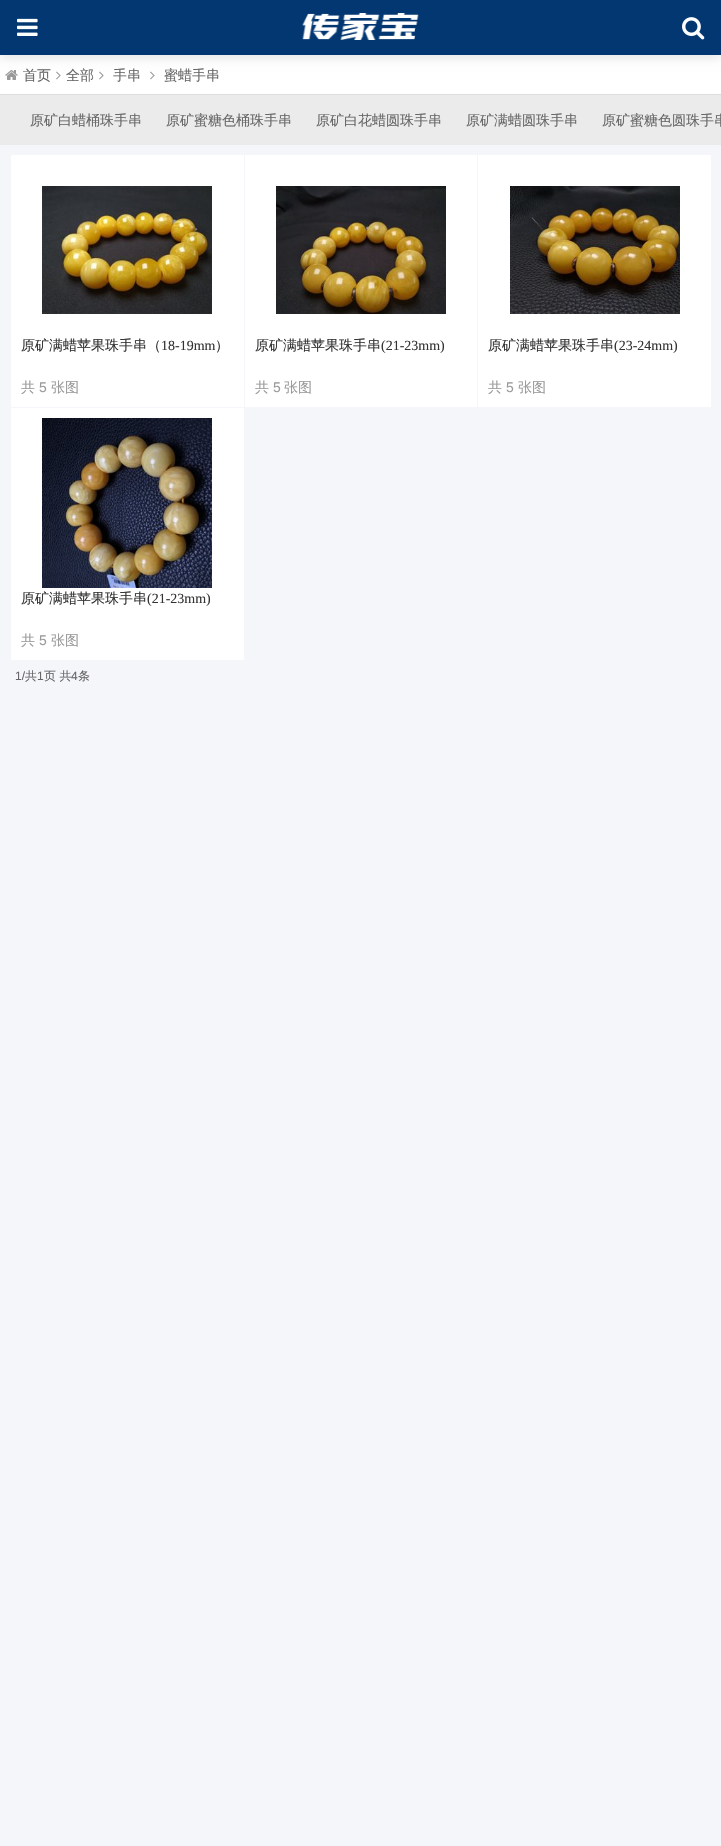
static SkFont makeFont(const char* family, int weight, float size, bool italic = false) {
  SkFontStyle style(weight, SkFontStyle::kNormal_Width,
    italic ? SkFontStyle::kItalic_Slant : SkFontStyle::kUpright_Slant);
  SkFont result(fontMgr->matchFamilyStyle(family, style), size);
  result.setSubpixel(true);
  return result;
}

static void text(SkCanvas* c, const char* s, float x, float y, const SkFont& font, SkColor color) {
  SkPaint ink(SkColor4f::FromColor(color));
  ink.setAntiAlias(true);
  c->drawString(s, x, y, font, ink);
}

static void box(SkCanvas* c, float l, float t, float r, float b, SkColor color) {
  SkPaint ink(SkColor4f::FromColor(color));
  ink.setAntiAlias(true);
  c->drawRect(SkRect::MakeLTRB(l, t, r, b), ink);
}

static void picture(SkCanvas* c, const char* path, float l, float t, float r, float b) {
  auto image = SkImages::DeferredFromEncodedData(SkData::MakeFromFileName(path));
  c->drawImageRect(image, SkRect::MakeLTRB(l, t, r, b), SkSamplingOptions());
}

void draw(SkCanvas* c) {
  SkPaint paint;
  paint.setAntiAlias(true);
  c->clear(0xfff5f6fa);
  box(c, 0, 55, 721, 94, 0xffffffff);
  picture(c, "img_04.png", 5, 70, 18, 80);
  picture(c, "img_05.png", 56, 71, 61, 80);
  picture(c, "img_05.png", 99, 71, 104, 80);
  picture(c, "img_05.png", 150, 71, 155, 80);
  paint.setColor(0x1a000000);
  paint.setMaskFilter(SkMaskFilter::MakeBlur(kNormal_SkBlurStyle, 5));
  c->drawRect(SkRect::MakeLTRB(0, 3, 721, 58), paint);
  paint.setMaskFilter(nullptr);
  box(c, 0, 0, 721, 55, 0xff033771);
  picture(c, "img_01.png", 17, 18, 38, 36);
  picture(c, "img_02.png", 302, 13, 419, 40);
  picture(c, "img_03.png", 682, 17, 705, 40);
  box(c, 0, 94, 721, 95, 0xffdddddd);
  SkFont face1 = makeFont("WenQuanYi Zen Hei", 500, 14);
  text(c, "首页", 23, 80, face1, 0xff666666);
  text(c, "全部", 66, 80, face1, 0xff666666);
  text(c, "手串", 113, 80, face1, 0xff666666);
  text(c, "蜜蜡手串", 164, 80, face1, 0xff666666);
  box(c, 0, 95, 721, 145, 0xffebebeb);
  text(c, "原矿白蜡桶珠手串", 30, 125, face1, 0xff666666);
  text(c, "原矿蜜糖色桶珠手串", 166, 125, face1, 0xff666666);
  text(c, "原矿白花蜡圆珠手串", 316, 125, face1, 0xff666666);
  text(c, "原矿满蜡圆珠手串", 466, 125, face1, 0xff666666);
  text(c, "原矿蜜糖色圆珠手串", 602, 125, face1, 0xff666666);
  box(c, 11, 155, 244, 407, 0xffffffff);
  picture(c, "img_06.png", 42, 186, 212, 314);
  text(c, "原矿满蜡苹果珠手串（", 21, 350, face1, 0xff333333);
  SkFont face2 = makeFont("Liberation Serif", 400, 14);
  text(c, "18-19mm", 161, 350, face2, 0xff333333);
  text(c, "）", 215, 350, face1, 0xff333333);
  text(c, "共", 21, 392, face1, 0xff999999);
  SkFont face3 = makeFont("Liberation Sans", 400, 14);
  text(c, "5", 39, 392, face3, 0xff999999);
  text(c, "张图", 51, 392, face1, 0xff999999);
  box(c, 245, 155, 477, 407, 0xffffffff);
  picture(c, "img_07.png", 276, 186, 446, 314);
  text(c, "原矿满蜡苹果珠手串", 255, 350, face1, 0xff333333);
  text(c, "(21-23mm)", 381, 350, face2, 0xff333333);
  text(c, "共", 255, 392, face1, 0xff999999);
  text(c, "5", 273, 392, face3, 0xff999999);
  text(c, "张图", 284, 392, face1, 0xff999999);
  box(c, 478, 155, 711, 407, 0xffffffff);
  picture(c, "img_08.png", 510, 186, 680, 314);
  text(c, "原矿满蜡苹果珠手串", 488, 350, face1, 0xff333333);
  text(c, "(23-24mm)", 614, 350, face2, 0xff333333);
  text(c, "共", 488, 392, face1, 0xff999999);
  text(c, "5", 506, 392, face3, 0xff999999);
  text(c, "张图", 518, 392, face1, 0xff999999);
  box(c, 11, 408, 244, 660, 0xffffffff);
  picture(c, "img_09.png", 42, 418, 212, 588);
  text(c, "原矿满蜡苹果珠手串", 21, 603, face1, 0xff333333);
  text(c, "(21-23mm)", 147, 603, face2, 0xff333333);
  text(c, "共", 21, 645, face1, 0xff999999);
  text(c, "5", 39, 645, face3, 0xff999999);
  text(c, "张图", 51, 645, face1, 0xff999999);
  SkFont face4 = makeFont("Liberation Sans", 400, 12);
  text(c, "1/", 15, 680, face4, 0xff666666);
  SkFont face5 = makeFont("WenQuanYi Zen Hei", 500, 12);
  text(c, "共", 25, 680, face5, 0xff666666);
  text(c, "1", 37, 680, face4, 0xff666666);
  text(c, "页 共", 44, 680, face5, 0xff666666);
  text(c, "4", 71, 680, face4, 0xff666666);
  text(c, "条", 78, 680, face5, 0xff666666);
}
